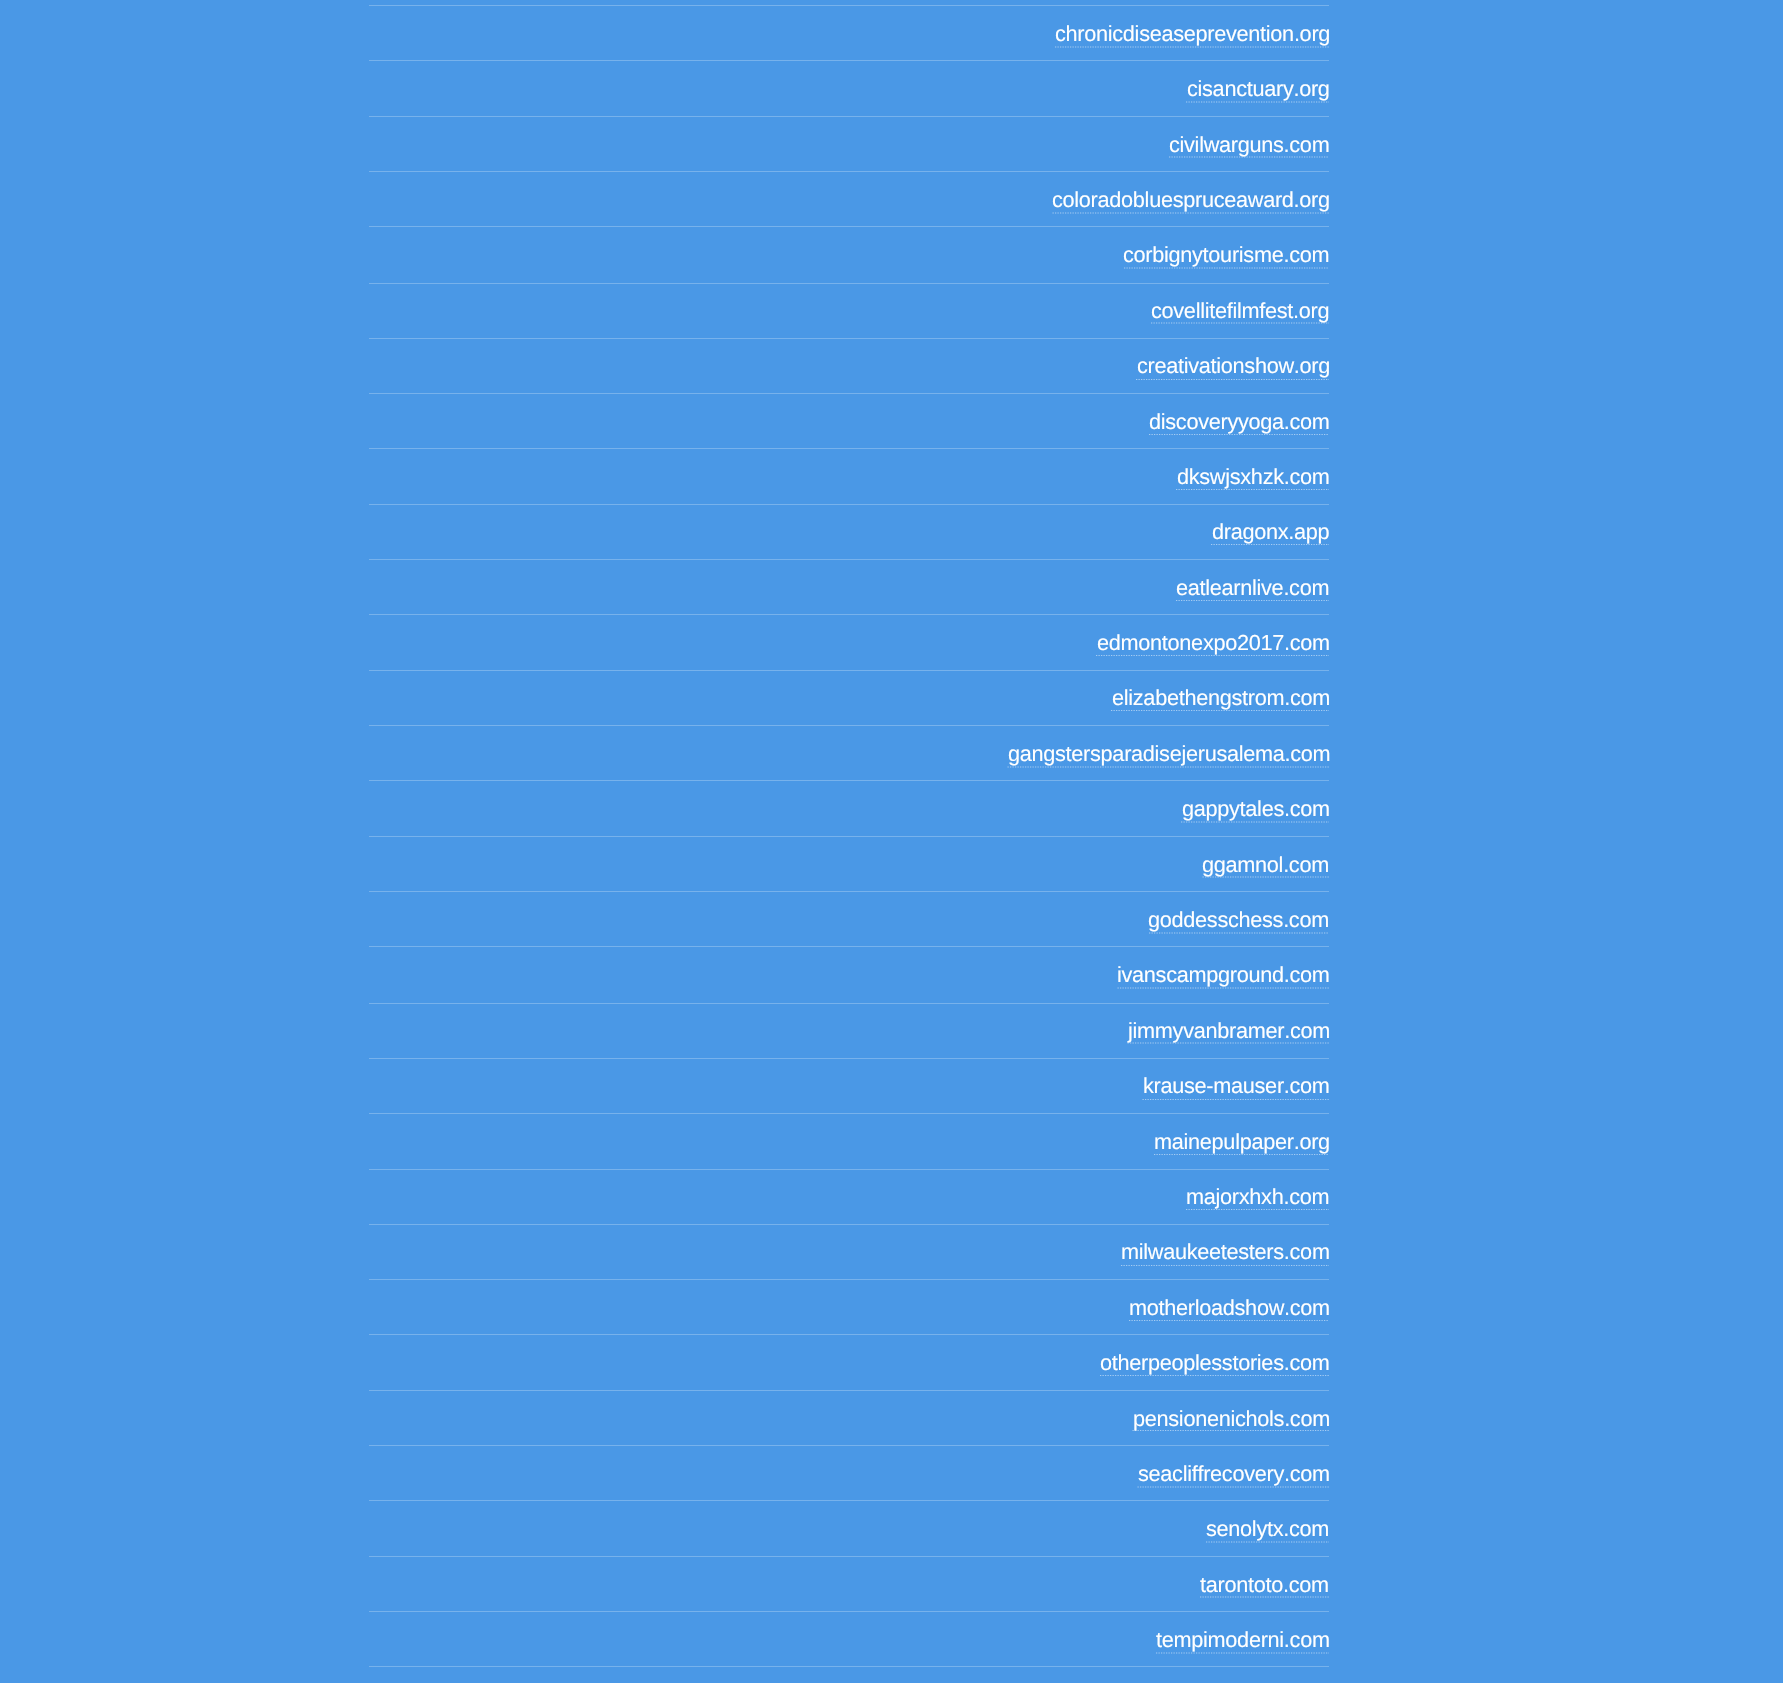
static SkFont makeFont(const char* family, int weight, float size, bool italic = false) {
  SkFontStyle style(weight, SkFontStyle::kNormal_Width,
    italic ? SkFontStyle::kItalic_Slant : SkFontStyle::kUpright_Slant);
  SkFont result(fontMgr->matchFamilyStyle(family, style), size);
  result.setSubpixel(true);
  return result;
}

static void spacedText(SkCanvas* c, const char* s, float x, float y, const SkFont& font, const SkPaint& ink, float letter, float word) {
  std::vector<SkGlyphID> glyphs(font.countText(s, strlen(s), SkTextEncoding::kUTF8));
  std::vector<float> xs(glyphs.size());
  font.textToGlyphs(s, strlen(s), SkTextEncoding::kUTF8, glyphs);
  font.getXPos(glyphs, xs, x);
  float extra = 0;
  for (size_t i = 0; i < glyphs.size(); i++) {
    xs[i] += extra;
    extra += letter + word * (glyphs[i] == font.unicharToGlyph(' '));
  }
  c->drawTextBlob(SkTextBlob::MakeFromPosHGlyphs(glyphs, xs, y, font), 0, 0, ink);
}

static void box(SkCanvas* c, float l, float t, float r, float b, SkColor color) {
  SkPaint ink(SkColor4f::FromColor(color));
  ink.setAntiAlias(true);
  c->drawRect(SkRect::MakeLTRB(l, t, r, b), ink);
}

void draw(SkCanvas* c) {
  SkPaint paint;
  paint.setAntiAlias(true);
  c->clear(0xff4a98e6);
  box(c, 369, 5, 1329, 6, 0xff77b2ec);
  SkFont face1 = makeFont("Liberation Sans", 400, 21.7f);
  paint.setColor(0xffffffff);
  spacedText(c, "chronicdiseaseprevention.org", 1055, 41, face1, paint, -0.3f, 0);
  paint.setStyle(SkPaint::kStroke_Style);
  paint.setStrokeWidth(1.2f);
  paint.setColor(0xffa5ccf3);
  paint.setPathEffect(SkDashPathEffect::Make({{1.25f, 1.25f}}, 0));
  c->drawPath(SkPathBuilder().moveTo(1055, 47).lineTo(1329, 47).detach(), paint);
  paint.setPathEffect(nullptr);
  box(c, 369, 60, 1329, 61, 0xff77b2ec);
  paint.setStyle(SkPaint::kFill_Style);
  paint.setColor(0xffffffff);
  spacedText(c, "cisanctuary.org", 1187, 96, face1, paint, -0.3f, 0);
  paint.setStyle(SkPaint::kStroke_Style);
  paint.setColor(0xffa5ccf3);
  paint.setPathEffect(SkDashPathEffect::Make({{1.25f, 1.25f}}, 0));
  c->drawPath(SkPathBuilder().moveTo(1186, 102).lineTo(1329, 102).detach(), paint);
  paint.setPathEffect(nullptr);
  box(c, 369, 116, 1329, 117, 0xff77b2ec);
  paint.setPathEffect(SkDashPathEffect::Make({{1.25f, 1.25f}}, 0));
  c->drawPath(SkPathBuilder().moveTo(1169, 157).lineTo(1329, 157).detach(), paint);
  paint.setPathEffect(nullptr);
  paint.setStyle(SkPaint::kFill_Style);
  paint.setColor(0xffffffff);
  spacedText(c, "civilwarguns.com", 1169, 152, face1, paint, -0.3f, 0);
  box(c, 369, 171, 1329, 172, 0xff77b2ec);
  spacedText(c, "coloradobluespruceaward.org", 1052, 207, face1, paint, -0.3f, 0);
  paint.setStyle(SkPaint::kStroke_Style);
  paint.setColor(0xffa5ccf3);
  paint.setPathEffect(SkDashPathEffect::Make({{1.25f, 1.25f}}, 0));
  c->drawPath(SkPathBuilder().moveTo(1052.5f, 213).lineTo(1329, 213).detach(), paint);
  paint.setPathEffect(nullptr);
  box(c, 369, 226, 1329, 227, 0xff77b2ec);
  paint.setStyle(SkPaint::kFill_Style);
  paint.setColor(0xffffffff);
  spacedText(c, "corbignytourisme.com", 1123, 262, face1, paint, -0.3f, 0);
  paint.setStyle(SkPaint::kStroke_Style);
  paint.setColor(0xffa5ccf3);
  paint.setPathEffect(SkDashPathEffect::Make({{1.25f, 1.25f}}, 0));
  c->drawPath(SkPathBuilder().moveTo(1124, 268).lineTo(1329, 268).detach(), paint);
  paint.setPathEffect(nullptr);
  box(c, 369, 283, 1329, 284, 0xff77b2ec);
  paint.setPathEffect(SkDashPathEffect::Make({{1.25f, 1.25f}}, 0));
  c->drawPath(SkPathBuilder().moveTo(1151, 323).lineTo(1329, 323).detach(), paint);
  paint.setPathEffect(nullptr);
  paint.setStyle(SkPaint::kFill_Style);
  paint.setColor(0xffffffff);
  spacedText(c, "covellitefilmfest.org", 1151, 318, face1, paint, -0.3f, 0);
  box(c, 369, 338, 1329, 339, 0xff77b2ec);
  spacedText(c, "creativationshow.org", 1137, 373, face1, paint, -0.3f, 0);
  paint.setStyle(SkPaint::kStroke_Style);
  paint.setColor(0xffa5ccf3);
  paint.setPathEffect(SkDashPathEffect::Make({{1.25f, 1.25f}}, 0));
  c->drawPath(SkPathBuilder().moveTo(1136, 379.5f).lineTo(1329, 379.5f).detach(), paint);
  paint.setPathEffect(nullptr);
  box(c, 369, 393, 1329, 394, 0xff77b2ec);
  paint.setPathEffect(SkDashPathEffect::Make({{1.25f, 1.25f}}, 0));
  c->drawPath(SkPathBuilder().moveTo(1149, 434.5f).lineTo(1329, 434.5f).detach(), paint);
  paint.setPathEffect(nullptr);
  paint.setStyle(SkPaint::kFill_Style);
  paint.setColor(0xffffffff);
  spacedText(c, "discoveryyoga.com", 1149, 429, face1, paint, -0.3f, 0);
  box(c, 369, 448, 1329, 449, 0xff77b2ec);
  paint.setStyle(SkPaint::kStroke_Style);
  paint.setColor(0xffa5ccf3);
  paint.setPathEffect(SkDashPathEffect::Make({{1.25f, 1.25f}}, 0));
  c->drawPath(SkPathBuilder().moveTo(1176, 489.5f).lineTo(1329, 489.5f).detach(), paint);
  paint.setPathEffect(nullptr);
  paint.setStyle(SkPaint::kFill_Style);
  paint.setColor(0xffffffff);
  spacedText(c, "dkswjsxhzk.com", 1177, 484, face1, paint, -0.3f, 0);
  box(c, 369, 504, 1329, 505, 0xff77b2ec);
  paint.setStyle(SkPaint::kStroke_Style);
  paint.setColor(0xffa5ccf3);
  paint.setPathEffect(SkDashPathEffect::Make({{1.25f, 1.25f}}, 0));
  c->drawPath(SkPathBuilder().moveTo(1211, 544.5f).lineTo(1329, 544.5f).detach(), paint);
  paint.setPathEffect(nullptr);
  paint.setStyle(SkPaint::kFill_Style);
  paint.setColor(0xffffffff);
  spacedText(c, "dragonx.app", 1212, 539, face1, paint, -0.3f, 0);
  box(c, 369, 559, 1329, 560, 0xff77b2ec);
  spacedText(c, "eatlearnlive.com", 1176, 595, face1, paint, -0.3f, 0);
  paint.setStyle(SkPaint::kStroke_Style);
  paint.setColor(0xffa5ccf3);
  paint.setPathEffect(SkDashPathEffect::Make({{1.25f, 1.25f}}, 0));
  c->drawPath(SkPathBuilder().moveTo(1176, 600.5f).lineTo(1329, 600.5f).detach(), paint);
  paint.setPathEffect(nullptr);
  box(c, 369, 614, 1329, 615, 0xff77b2ec);
  paint.setPathEffect(SkDashPathEffect::Make({{1.25f, 1.25f}}, 0));
  c->drawPath(SkPathBuilder().moveTo(1096, 655.5f).lineTo(1329, 655.5f).detach(), paint);
  paint.setPathEffect(nullptr);
  paint.setStyle(SkPaint::kFill_Style);
  paint.setColor(0xffffffff);
  spacedText(c, "edmontonexpo2017.com", 1097, 650, face1, paint, -0.3f, 0);
  box(c, 369, 670, 1329, 671, 0xff77b2ec);
  paint.setStyle(SkPaint::kStroke_Style);
  paint.setColor(0xffa5ccf3);
  paint.setPathEffect(SkDashPathEffect::Make({{1.25f, 1.25f}}, 0));
  c->drawPath(SkPathBuilder().moveTo(1111, 710.5f).lineTo(1329, 710.5f).detach(), paint);
  paint.setPathEffect(nullptr);
  paint.setStyle(SkPaint::kFill_Style);
  paint.setColor(0xffffffff);
  spacedText(c, "elizabethengstrom.com", 1112, 705, face1, paint, -0.3f, 0);
  box(c, 369, 725, 1329, 726, 0xff77b2ec);
  spacedText(c, "gangstersparadisejerusalema.com", 1008, 761, face1, paint, -0.3f, 0);
  paint.setStyle(SkPaint::kStroke_Style);
  paint.setColor(0xffa5ccf3);
  paint.setPathEffect(SkDashPathEffect::Make({{1.25f, 1.25f}}, 0));
  c->drawPath(SkPathBuilder().moveTo(1007.5f, 767).lineTo(1329, 767).detach(), paint);
  paint.setPathEffect(nullptr);
  box(c, 369, 780, 1329, 781, 0xff77b2ec);
  paint.setStyle(SkPaint::kFill_Style);
  paint.setColor(0xffffffff);
  spacedText(c, "gappytales.com", 1182, 816, face1, paint, -0.3f, 0);
  paint.setStyle(SkPaint::kStroke_Style);
  paint.setColor(0xffa5ccf3);
  paint.setPathEffect(SkDashPathEffect::Make({{1.25f, 1.25f}}, 0));
  c->drawPath(SkPathBuilder().moveTo(1181, 822).lineTo(1329, 822).detach(), paint);
  paint.setPathEffect(nullptr);
  box(c, 369, 836, 1329, 837, 0xff77b2ec);
  paint.setPathEffect(SkDashPathEffect::Make({{1.25f, 1.25f}}, 0));
  c->drawPath(SkPathBuilder().moveTo(1202.5f, 877).lineTo(1329, 877).detach(), paint);
  paint.setPathEffect(nullptr);
  paint.setStyle(SkPaint::kFill_Style);
  paint.setColor(0xffffffff);
  spacedText(c, "ggamnol.com", 1202, 872, face1, paint, -0.3f, 0);
  box(c, 369, 891, 1329, 892, 0xff77b2ec);
  spacedText(c, "goddesschess.com", 1148, 927, face1, paint, -0.3f, 0);
  paint.setStyle(SkPaint::kStroke_Style);
  paint.setColor(0xffa5ccf3);
  paint.setPathEffect(SkDashPathEffect::Make({{1.25f, 1.25f}}, 0));
  c->drawPath(SkPathBuilder().moveTo(1149, 933).lineTo(1329, 933).detach(), paint);
  paint.setPathEffect(nullptr);
  box(c, 369, 946, 1329, 947, 0xff77b2ec);
  paint.setStyle(SkPaint::kFill_Style);
  paint.setColor(0xffffffff);
  spacedText(c, "ivanscampground.com", 1117, 982, face1, paint, -0.3f, 0);
  paint.setStyle(SkPaint::kStroke_Style);
  paint.setColor(0xffa5ccf3);
  paint.setPathEffect(SkDashPathEffect::Make({{1.25f, 1.25f}}, 0));
  c->drawPath(SkPathBuilder().moveTo(1117.5f, 988).lineTo(1329, 988).detach(), paint);
  paint.setPathEffect(nullptr);
  box(c, 369, 1003, 1329, 1004, 0xff77b2ec);
  paint.setPathEffect(SkDashPathEffect::Make({{1.25f, 1.25f}}, 0));
  c->drawPath(SkPathBuilder().moveTo(1127.5f, 1043).lineTo(1329, 1043).detach(), paint);
  paint.setPathEffect(nullptr);
  paint.setStyle(SkPaint::kFill_Style);
  paint.setColor(0xffffffff);
  spacedText(c, "jimmyvanbramer.com", 1128, 1038, face1, paint, -0.3f, 0);
  box(c, 369, 1058, 1329, 1059, 0xff77b2ec);
  spacedText(c, "krause-mauser.com", 1143, 1093, face1, paint, -0.3f, 0);
  paint.setStyle(SkPaint::kStroke_Style);
  paint.setColor(0xffa5ccf3);
  paint.setPathEffect(SkDashPathEffect::Make({{1.25f, 1.25f}}, 0));
  c->drawPath(SkPathBuilder().moveTo(1142.5f, 1099.5f).lineTo(1329, 1099.5f).detach(), paint);
  paint.setPathEffect(nullptr);
  box(c, 369, 1113, 1329, 1114, 0xff77b2ec);
  paint.setPathEffect(SkDashPathEffect::Make({{1.25f, 1.25f}}, 0));
  c->drawPath(SkPathBuilder().moveTo(1154, 1154.5f).lineTo(1329, 1154.5f).detach(), paint);
  paint.setPathEffect(nullptr);
  paint.setStyle(SkPaint::kFill_Style);
  paint.setColor(0xffffffff);
  spacedText(c, "mainepulpaper.org", 1154, 1149, face1, paint, -0.3f, 0);
  box(c, 369, 1169, 1329, 1170, 0xff77b2ec);
  paint.setStyle(SkPaint::kStroke_Style);
  paint.setColor(0xffa5ccf3);
  paint.setPathEffect(SkDashPathEffect::Make({{1.25f, 1.25f}}, 0));
  c->drawPath(SkPathBuilder().moveTo(1186, 1209.5f).lineTo(1329, 1209.5f).detach(), paint);
  paint.setPathEffect(nullptr);
  paint.setStyle(SkPaint::kFill_Style);
  paint.setColor(0xffffffff);
  spacedText(c, "majorxhxh.com", 1186, 1204, face1, paint, -0.3f, 0);
  box(c, 369, 1224, 1329, 1225, 0xff77b2ec);
  spacedText(c, "milwaukeetesters.com", 1121, 1259, face1, paint, -0.3f, 0);
  paint.setStyle(SkPaint::kStroke_Style);
  paint.setColor(0xffa5ccf3);
  paint.setPathEffect(SkDashPathEffect::Make({{1.25f, 1.25f}}, 0));
  c->drawPath(SkPathBuilder().moveTo(1121, 1265.5f).lineTo(1329, 1265.5f).detach(), paint);
  paint.setPathEffect(nullptr);
  box(c, 369, 1279, 1329, 1280, 0xff77b2ec);
  paint.setStyle(SkPaint::kFill_Style);
  paint.setColor(0xffffffff);
  spacedText(c, "motherloadshow.com", 1129, 1315, face1, paint, -0.3f, 0);
  paint.setStyle(SkPaint::kStroke_Style);
  paint.setColor(0xffa5ccf3);
  paint.setPathEffect(SkDashPathEffect::Make({{1.25f, 1.25f}}, 0));
  c->drawPath(SkPathBuilder().moveTo(1129, 1320.5f).lineTo(1329, 1320.5f).detach(), paint);
  paint.setPathEffect(nullptr);
  box(c, 369, 1334, 1329, 1335, 0xff77b2ec);
  paint.setPathEffect(SkDashPathEffect::Make({{1.25f, 1.25f}}, 0));
  c->drawPath(SkPathBuilder().moveTo(1100, 1375.5f).lineTo(1329, 1375.5f).detach(), paint);
  paint.setPathEffect(nullptr);
  paint.setStyle(SkPaint::kFill_Style);
  paint.setColor(0xffffffff);
  spacedText(c, "otherpeoplesstories.com", 1100, 1370, face1, paint, -0.3f, 0);
  box(c, 369, 1390, 1329, 1391, 0xff77b2ec);
  paint.setStyle(SkPaint::kStroke_Style);
  paint.setColor(0xffa5ccf3);
  paint.setPathEffect(SkDashPathEffect::Make({{1.25f, 1.25f}}, 0));
  c->drawPath(SkPathBuilder().moveTo(1132.5f, 1430.5f).lineTo(1329, 1430.5f).detach(), paint);
  paint.setPathEffect(nullptr);
  paint.setStyle(SkPaint::kFill_Style);
  paint.setColor(0xffffffff);
  spacedText(c, "pensionenichols.com", 1133, 1426, face1, paint, -0.3f, 0);
  box(c, 369, 1445, 1329, 1446, 0xff77b2ec);
  spacedText(c, "seacliffrecovery.com", 1138, 1481, face1, paint, -0.3f, 0);
  paint.setStyle(SkPaint::kStroke_Style);
  paint.setColor(0xffa5ccf3);
  paint.setPathEffect(SkDashPathEffect::Make({{1.25f, 1.25f}}, 0));
  c->drawPath(SkPathBuilder().moveTo(1137.5f, 1487).lineTo(1329, 1487).detach(), paint);
  paint.setPathEffect(nullptr);
  box(c, 369, 1500, 1329, 1501, 0xff77b2ec);
  paint.setStyle(SkPaint::kFill_Style);
  paint.setColor(0xffffffff);
  spacedText(c, "senolytx.com", 1206, 1536, face1, paint, -0.3f, 0);
  paint.setStyle(SkPaint::kStroke_Style);
  paint.setColor(0xffa5ccf3);
  paint.setPathEffect(SkDashPathEffect::Make({{1.25f, 1.25f}}, 0));
  c->drawPath(SkPathBuilder().moveTo(1206, 1542).lineTo(1329, 1542).detach(), paint);
  paint.setPathEffect(nullptr);
  box(c, 369, 1556, 1329, 1557, 0xff77b2ec);
  paint.setStyle(SkPaint::kFill_Style);
  paint.setColor(0xffffffff);
  spacedText(c, "tarontoto.com", 1200, 1592, face1, paint, -0.3f, 0);
  paint.setStyle(SkPaint::kStroke_Style);
  paint.setColor(0xffa5ccf3);
  paint.setPathEffect(SkDashPathEffect::Make({{1.25f, 1.25f}}, 0));
  c->drawPath(SkPathBuilder().moveTo(1200, 1597).lineTo(1329, 1597).detach(), paint);
  paint.setPathEffect(nullptr);
  box(c, 369, 1611, 1329, 1612, 0xff77b2ec);
  paint.setStyle(SkPaint::kFill_Style);
  paint.setColor(0xffffffff);
  spacedText(c, "tempimoderni.com", 1156, 1647, face1, paint, -0.3f, 0);
  paint.setStyle(SkPaint::kStroke_Style);
  paint.setColor(0xffa5ccf3);
  paint.setPathEffect(SkDashPathEffect::Make({{1.25f, 1.25f}}, 0));
  c->drawPath(SkPathBuilder().moveTo(1156, 1653).lineTo(1329, 1653).detach(), paint);
  paint.setPathEffect(nullptr);
  box(c, 369, 1666, 1329, 1667, 0xff77b2ec);
}
